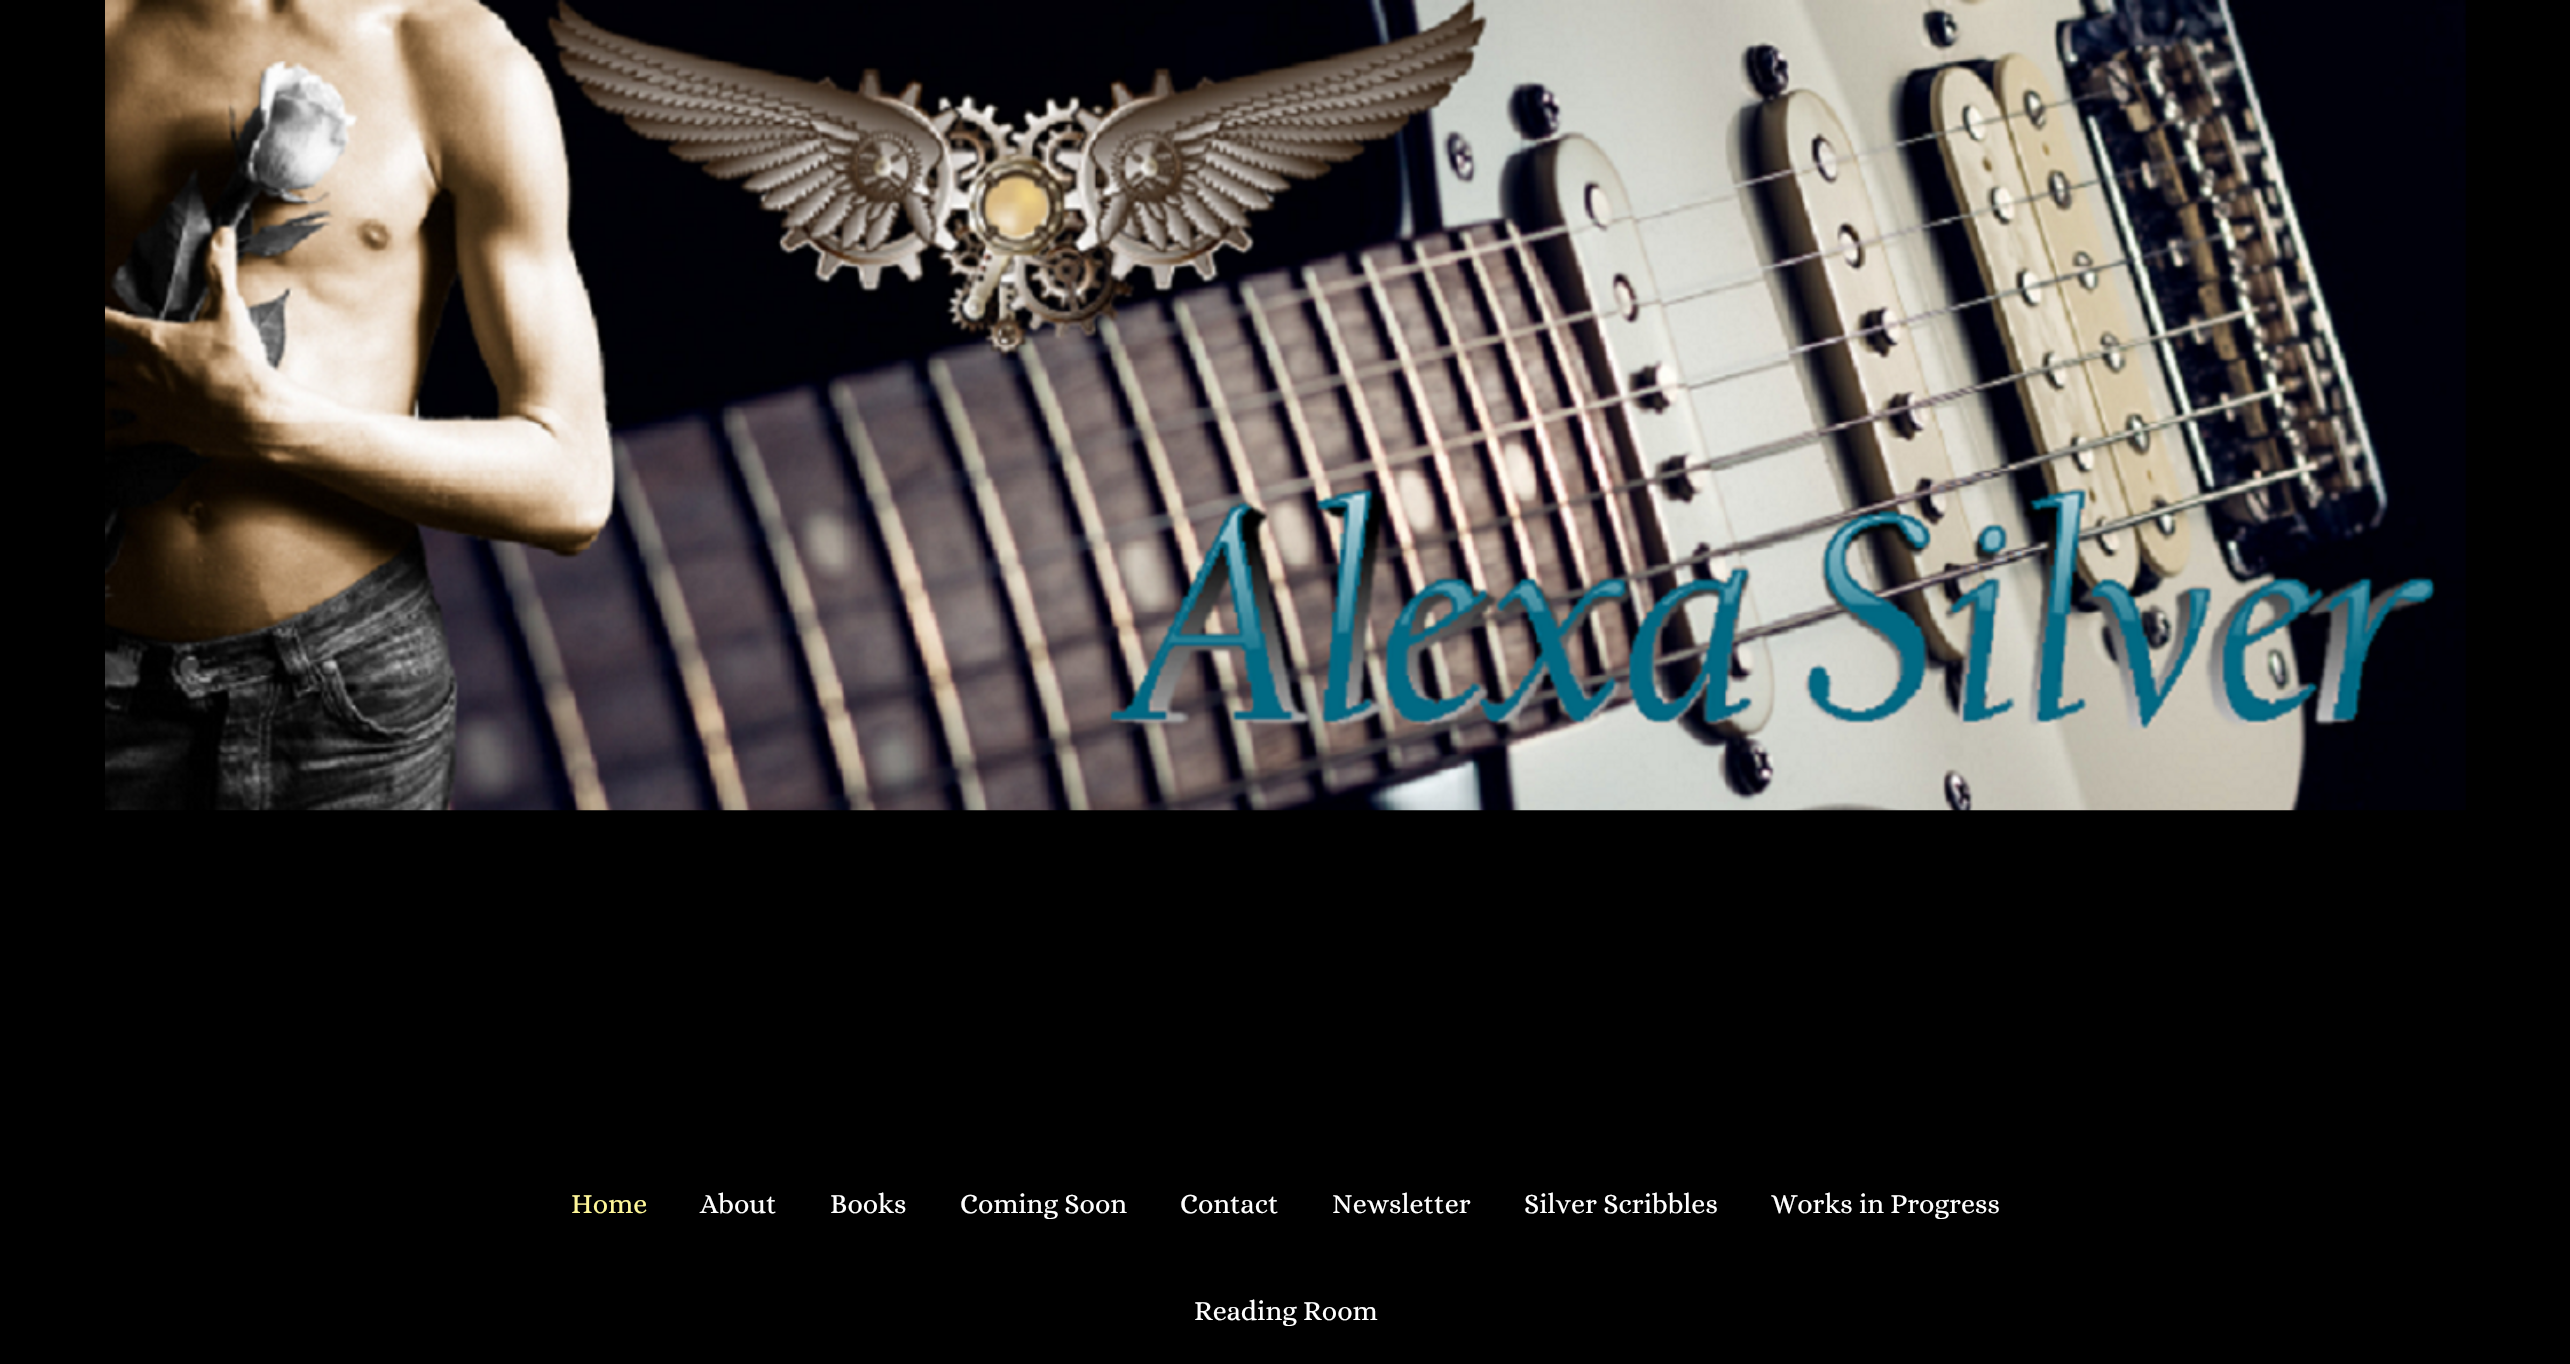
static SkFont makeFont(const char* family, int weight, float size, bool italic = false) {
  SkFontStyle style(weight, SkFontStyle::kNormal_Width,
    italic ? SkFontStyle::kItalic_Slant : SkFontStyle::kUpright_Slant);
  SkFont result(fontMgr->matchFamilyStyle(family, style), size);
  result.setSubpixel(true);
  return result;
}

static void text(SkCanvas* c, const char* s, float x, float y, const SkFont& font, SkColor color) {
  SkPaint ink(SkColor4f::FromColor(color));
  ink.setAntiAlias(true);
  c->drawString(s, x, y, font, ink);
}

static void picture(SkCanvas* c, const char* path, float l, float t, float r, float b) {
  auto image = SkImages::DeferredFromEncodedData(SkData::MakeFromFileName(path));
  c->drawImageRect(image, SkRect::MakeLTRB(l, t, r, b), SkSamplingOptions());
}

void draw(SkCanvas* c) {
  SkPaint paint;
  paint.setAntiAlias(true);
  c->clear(0xff000000);
  picture(c, "img_01.png", 105, 0, 2466, 811);
  SkFont face1 = makeFont("Alice", 400, 28);
  text(c, "Home", 571, 1213, face1, 0xfffff799);
  text(c, "About", 700, 1213, face1, 0xffffffff);
  text(c, "Books", 830, 1213, face1, 0xffffffff);
  text(c, "Coming Soon", 960, 1213, face1, 0xffffffff);
  text(c, "Contact", 1180, 1213, face1, 0xffffffff);
  text(c, "Newsletter", 1332, 1213, face1, 0xffffffff);
  text(c, "Silver Scribbles", 1524, 1213, face1, 0xffffffff);
  text(c, "Works in Progress", 1771, 1213, face1, 0xffffffff);
  text(c, "Reading Room", 1194, 1320, face1, 0xffffffff);
}
